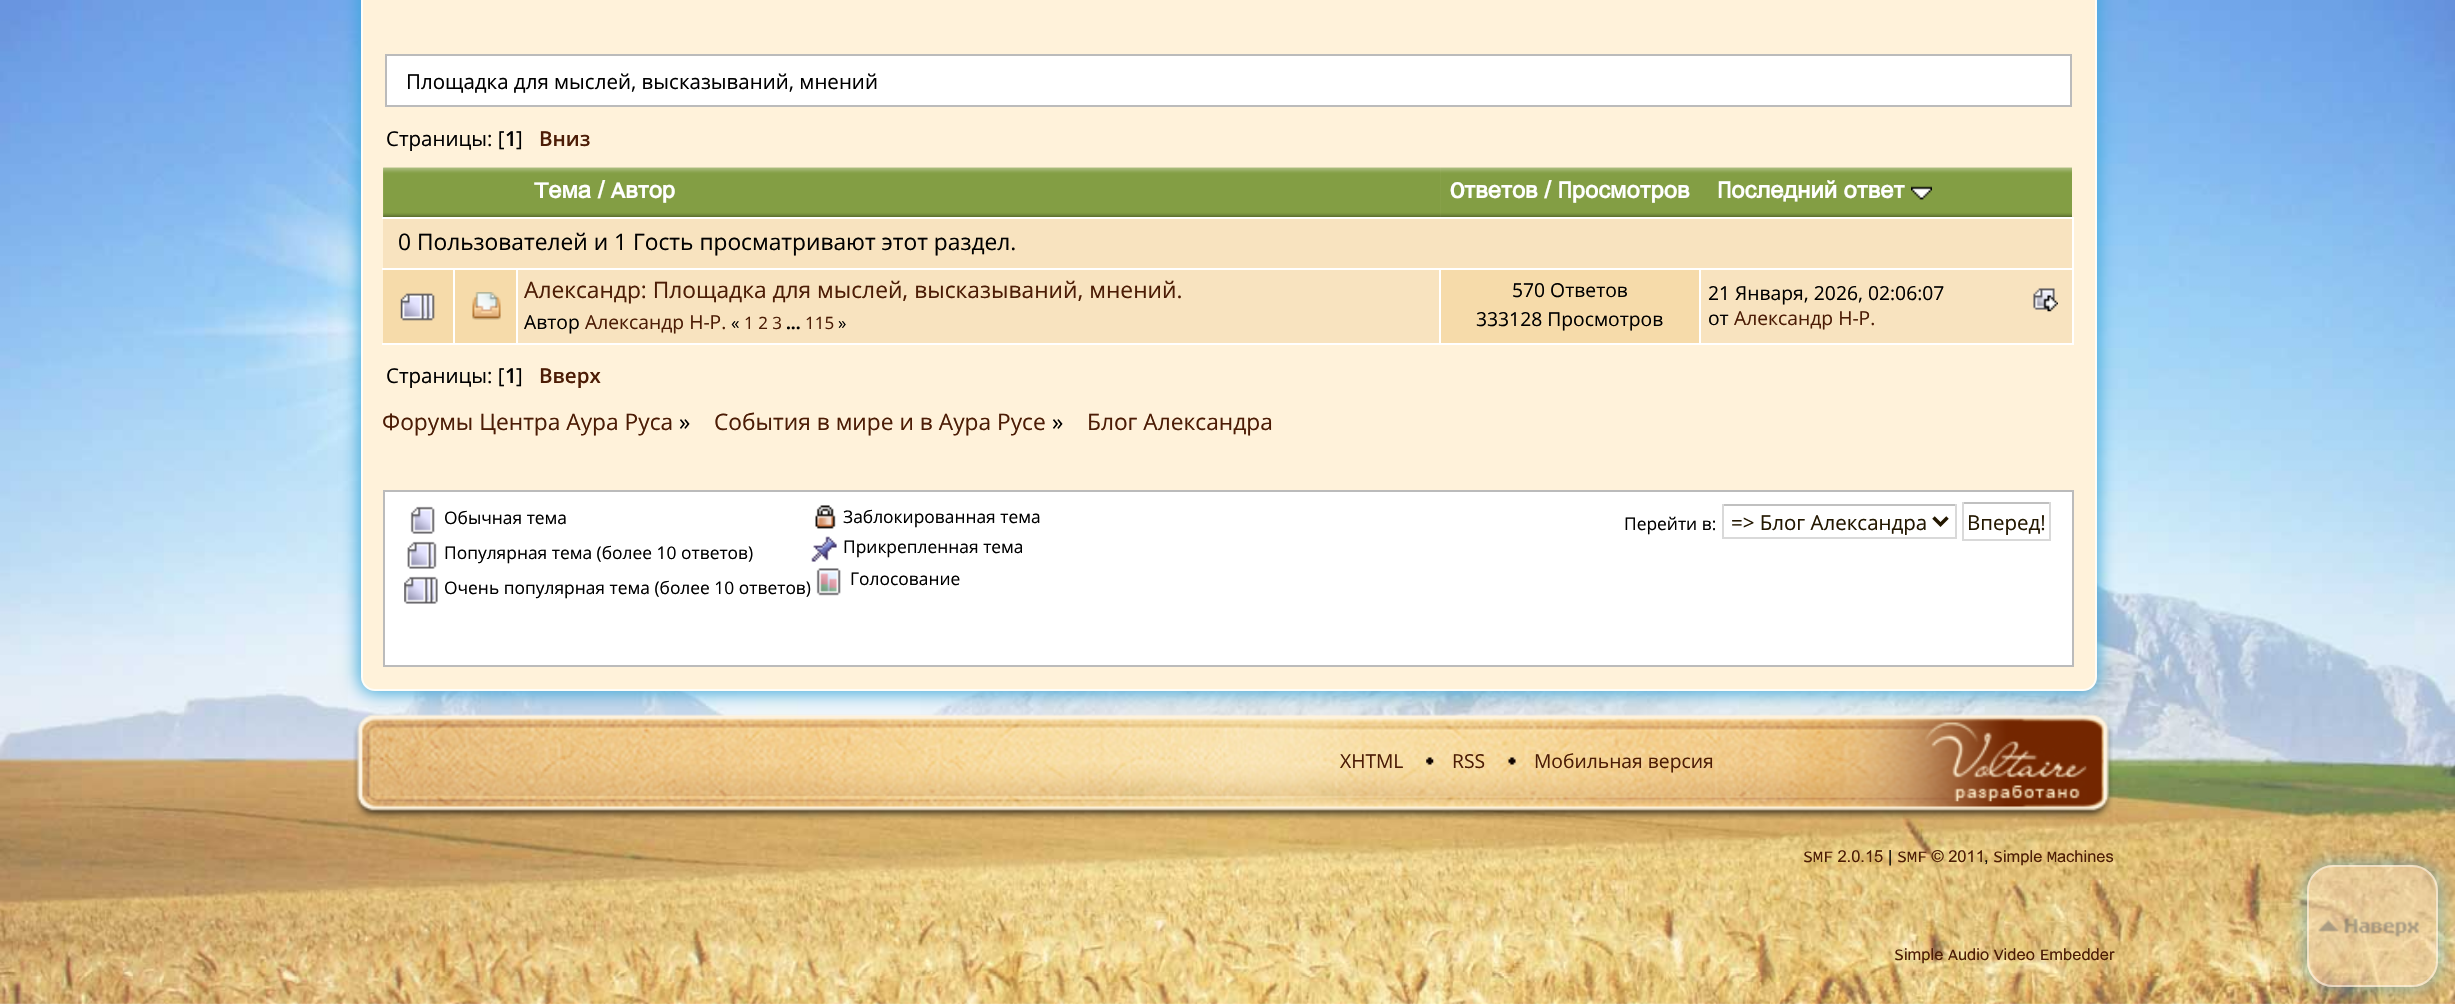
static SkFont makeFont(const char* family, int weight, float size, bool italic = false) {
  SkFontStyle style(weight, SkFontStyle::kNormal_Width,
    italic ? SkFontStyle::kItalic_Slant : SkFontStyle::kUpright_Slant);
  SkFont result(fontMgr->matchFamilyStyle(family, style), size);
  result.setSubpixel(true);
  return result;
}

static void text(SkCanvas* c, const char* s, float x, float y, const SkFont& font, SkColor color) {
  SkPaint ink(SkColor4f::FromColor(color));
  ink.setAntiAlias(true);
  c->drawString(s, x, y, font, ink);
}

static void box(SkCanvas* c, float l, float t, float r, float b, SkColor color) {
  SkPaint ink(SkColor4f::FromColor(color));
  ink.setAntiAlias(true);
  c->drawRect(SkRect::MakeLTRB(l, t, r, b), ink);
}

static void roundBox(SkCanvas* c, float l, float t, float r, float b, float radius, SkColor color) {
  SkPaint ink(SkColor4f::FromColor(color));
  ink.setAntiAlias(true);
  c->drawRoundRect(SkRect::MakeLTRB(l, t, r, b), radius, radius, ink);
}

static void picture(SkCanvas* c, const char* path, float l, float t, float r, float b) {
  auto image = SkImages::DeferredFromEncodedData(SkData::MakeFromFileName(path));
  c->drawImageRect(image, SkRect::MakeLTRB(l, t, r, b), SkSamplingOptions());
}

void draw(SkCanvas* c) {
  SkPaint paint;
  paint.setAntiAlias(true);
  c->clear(0xffffffff);
  picture(c, "img_01.png", 0, 0, 2455, 1004);
  paint.setColor(0xff39a7da);
  paint.setMaskFilter(SkMaskFilter::MakeBlur(kNormal_SkBlurStyle, 9));
  c->drawRoundRect(SkRect::MakeLTRB(359, -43, 2098, 693), 16, 16, paint);
  paint.setMaskFilter(nullptr);
  paint.setColor(0xfffff2da);
  c->drawRoundRect(SkRect::MakeLTRB(362, -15, 2096, 690), 13, 13, paint);
  paint.setStyle(SkPaint::kStroke_Style);
  paint.setStrokeWidth(2);
  paint.setColor(0xfffefdf8);
  c->drawRoundRect(SkRect::MakeLTRB(362, -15, 2096, 690), 13, 13, paint);
  paint.setStyle(SkPaint::kFill_Style);
  paint.setColor(0xffffffff);
  c->drawRect(SkRect::MakeLTRB(386, 55, 2071, 106), paint);
  paint.setStyle(SkPaint::kStroke_Style);
  paint.setColor(0xffbbbbbb);
  c->drawRect(SkRect::MakeLTRB(386, 55, 2071, 106), paint);
  SkFont face1 = makeFont("Open Sans", 400, 20.5f);
  text(c, "Площадка для мыслей, высказываний, мнений", 406, 89, face1, 0xff000000);
  text(c, "Страницы: [", 386, 146, face1, 0xff000000);
  SkFont face2 = makeFont("Open Sans", 600, 20.5f);
  text(c, "1", 505, 146, face2, 0xff000000);
  text(c, "]", 516, 146, face1, 0xff000000);
  text(c, "Вниз", 539, 146, face2, 0xff4c1c05);
  box(c, 382, 217, 2074, 219, 0xffffffff);
  picture(c, "img_02.png", 383, 167, 518, 217);
  picture(c, "img_03.png", 518, 167, 1441, 217);
  SkFont face3 = makeFont("Arial", 700, 23.75f);
  text(c, "Тема / Автор", 534, 198, face3, 0xffffffff);
  picture(c, "img_04.png", 1440, 167, 1701, 217);
  text(c, "Ответов / Просмотров", 1450, 198, face3, 0xffffffff);
  picture(c, "img_05.png", 1701, 167, 2072, 217);
  text(c, "Последний ответ", 1717, 198, face3, 0xffffffff);
  picture(c, "img_06.png", 1911, 186, 1932, 200);
  box(c, 383, 219, 2072, 268, 0xfff8e3bf);
  box(c, 2072, 217, 2074, 345, 0xffffffff);
  box(c, 1699, 343, 2074, 345, 0xffffffff);
  box(c, 1699, 268, 1701, 345, 0xffffffff);
  box(c, 1439, 343, 1701, 345, 0xffffffff);
  box(c, 1439, 268, 1441, 345, 0xffffffff);
  box(c, 516, 343, 1440, 345, 0xffffffff);
  box(c, 516, 268, 518, 345, 0xffffffff);
  box(c, 453, 343, 518, 345, 0xffffffff);
  box(c, 453, 268, 455, 345, 0xffffffff);
  box(c, 382, 268, 2074, 270, 0xffffffff);
  SkFont face4 = makeFont("Open Sans", 400, 22.75f);
  text(c, "0 Пользователей и 1 Гость просматривают этот раздел.", 398, 250, face4, 0xff000000);
  box(c, 383, 270, 453, 343, 0xfff6dbaa);
  box(c, 382, 343, 455, 345, 0xffffffff);
  picture(c, "img_07.png", 400, 293, 435, 321);
  box(c, 455, 270, 516, 343, 0xfff6dbaa);
  picture(c, "img_08.png", 472, 292, 501, 320);
  box(c, 518, 270, 1439, 343, 0xfff8e3bf);
  text(c, "Александр: Площадка для мыслей, высказываний, мнений.", 524, 298, face4, 0xff4c1c05);
  SkFont face5 = makeFont("Open Sans", 400, 19.3f);
  text(c, "Автор", 524, 329, face5, 0xff000000);
  text(c, "Александр Н-Р.", 585, 329, face5, 0xff4c1c05);
  SkFont face6 = makeFont("Open Sans", 400, 17);
  text(c, "«", 731, 329, face6, 0xff000000);
  text(c, "1 2 3", 744, 329, face6, 0xff4c1c05);
  SkFont face7 = makeFont("Open Sans", 700, 17);
  text(c, "...", 786, 329, face7, 0xff000000);
  text(c, "115", 805, 329, face6, 0xff4c1c05);
  text(c, "»", 838, 329, face6, 0xff000000);
  box(c, 1441, 270, 1699, 343, 0xfff6dbaa);
  text(c, "570 Ответов", 1512, 297, face5, 0xff000000);
  text(c, "333128 Просмотров", 1476, 326, face5, 0xff000000);
  box(c, 1701, 270, 2072, 343, 0xfff8e3bf);
  text(c, "21 Января, 2026, 02:06:07", 1708, 300, face5, 0xff000000);
  picture(c, "img_09.png", 2033, 288, 2058, 312);
  text(c, "от", 1708, 325, face5, 0xff000000);
  text(c, "Александр Н-Р.", 1734, 325, face5, 0xff4c1c05);
  text(c, "Страницы: [", 386, 383, face1, 0xff000000);
  text(c, "1", 505, 383, face2, 0xff000000);
  text(c, "]", 516, 383, face1, 0xff000000);
  text(c, "Вверх", 539, 383, face2, 0xff4c1c05);
  text(c, "Форумы Центра Аура Руса", 382, 430, face4, 0xff4c1c05);
  text(c, "»", 679, 430, face4, 0xff000000);
  text(c, "События в мире и в Аура Русе", 714, 430, face4, 0xff4c1c05);
  text(c, "»", 1052, 430, face4, 0xff000000);
  text(c, "Блог Александра", 1087, 430, face4, 0xff4c1c05);
  paint.setStyle(SkPaint::kFill_Style);
  paint.setColor(0xffffffff);
  c->drawRect(SkRect::MakeLTRB(384, 491, 2073, 666), paint);
  paint.setStyle(SkPaint::kStroke_Style);
  paint.setColor(0xffbbbbbb);
  c->drawRect(SkRect::MakeLTRB(384, 491, 2073, 666), paint);
  picture(c, "img_10.png", 410, 506, 435, 534);
  SkFont face8 = makeFont("Open Sans", 400, 17.4f);
  text(c, "Обычная тема", 444, 524, face8, 0xff000000);
  picture(c, "img_11.png", 407, 541, 437, 569);
  text(c, "Популярная тема (более 10 ответов)", 444, 559, face8, 0xff000000);
  picture(c, "img_12.png", 404, 576, 438, 604);
  text(c, "Очень популярная тема (более 10 ответов)", 444, 594, face8, 0xff000000);
  picture(c, "img_13.png", 815, 505, 836, 529);
  text(c, "Заблокированная тема", 843, 523, face8, 0xff000000);
  picture(c, "img_14.png", 811, 536, 837, 562);
  text(c, "Прикрепленная тема", 843, 553, face8, 0xff000000);
  picture(c, "img_15.png", 816, 568, 841, 596);
  text(c, "Голосование", 850, 585, face8, 0xff000000);
  text(c, "Перейти в:", 1624, 530, face8, 0xff000000);
  box(c, 1722, 504, 1957, 506, 0xffc0c0c0);
  box(c, 1955, 504, 1957, 539, 0xffd9d9d9);
  box(c, 1722, 537, 1957, 539, 0xffd9d9d9);
  box(c, 1722, 504, 1724, 539, 0xffd9d9d9);
  paint.setStrokeWidth(3.5f);
  paint.setColor(0xff231700);
  c->drawPath(SkPathBuilder().moveTo(1933.5f, 517.5f).lineTo(1940.5f, 524.5f).lineTo(1947.5f, 517.5f).detach(), paint);
  text(c, "=> Блог Александра", 1731, 530, face1, 0xff231700);
  box(c, 1962, 502, 2051, 504, 0xffc0c0c0);
  box(c, 2049, 502, 2051, 541, 0xffd9d9d9);
  box(c, 1962, 539, 2051, 541, 0xffd9d9d9);
  box(c, 1962, 502, 1964, 541, 0xffd9d9d9);
  text(c, "Вперед!", 1967, 530, face1, 0xff231700);
  picture(c, "img_16.png", 353, 714, 2113, 820);
  text(c, "XHTML", 1340, 768, face5, 0xff4c1c05);
  picture(c, "img_17.png", 1426, 757, 1434, 765);
  text(c, "RSS", 1452, 768, face5, 0xff4c1c05);
  picture(c, "img_18.png", 1508, 757, 1516, 765);
  text(c, "Мобильная версия", 1534, 768, face5, 0xff4c1c05);
  picture(c, "img_19.png", 1925, 722, 2087, 802);
  SkFont face9 = makeFont("Arial", 400, 16.5f);
  text(c, "SMF 2.0.15", 1803, 862, face9, 0xff4c1c05);
  text(c, "|", 1888, 862, face9, 0xff000000);
  text(c, "SMF © 2011", 1897, 862, face9, 0xff4c1c05);
  text(c, ",", 1984, 862, face9, 0xff000000);
  text(c, "Simple Machines", 1993, 862, face9, 0xff4c1c05);
  text(c, "Simple Audio Video Embedder", 1894, 960, face9, 0xff4c1c05);
  c->save();
  c->clipPath(SkPathBuilder(SkPathFillType::kEvenOdd).moveTo(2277, 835).lineTo(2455, 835).lineTo(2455, 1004).lineTo(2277, 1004).close().moveTo(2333, 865).lineTo(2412, 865).cubicTo(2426.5f, 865, 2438, 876.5f, 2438, 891).lineTo(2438, 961).cubicTo(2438, 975.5f, 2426.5f, 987, 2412, 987).lineTo(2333, 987).cubicTo(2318.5f, 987, 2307, 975.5f, 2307, 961).lineTo(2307, 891).cubicTo(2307, 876.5f, 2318.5f, 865, 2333, 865).close().detach(), true);
  paint.setStyle(SkPaint::kFill_Style);
  paint.setColor(0x7d39a7da);
  paint.setMaskFilter(SkMaskFilter::MakeBlur(kNormal_SkBlurStyle, 9));
  c->drawRoundRect(SkRect::MakeLTRB(2305, 863, 2440, 989), 28, 28, paint);
  paint.setMaskFilter(nullptr);
  c->restore();
  roundBox(c, 2307, 865, 2438, 987, 26, 0x7df8e3bf);
  picture(c, "img_20.png", 2318, 918, 2420, 938);
  paint.setStyle(SkPaint::kStroke_Style);
  paint.setStrokeWidth(2);
  paint.setColor(0x7dfefdf8);
  c->drawRoundRect(SkRect::MakeLTRB(2308, 866, 2437, 986), 25, 25, paint);
}
